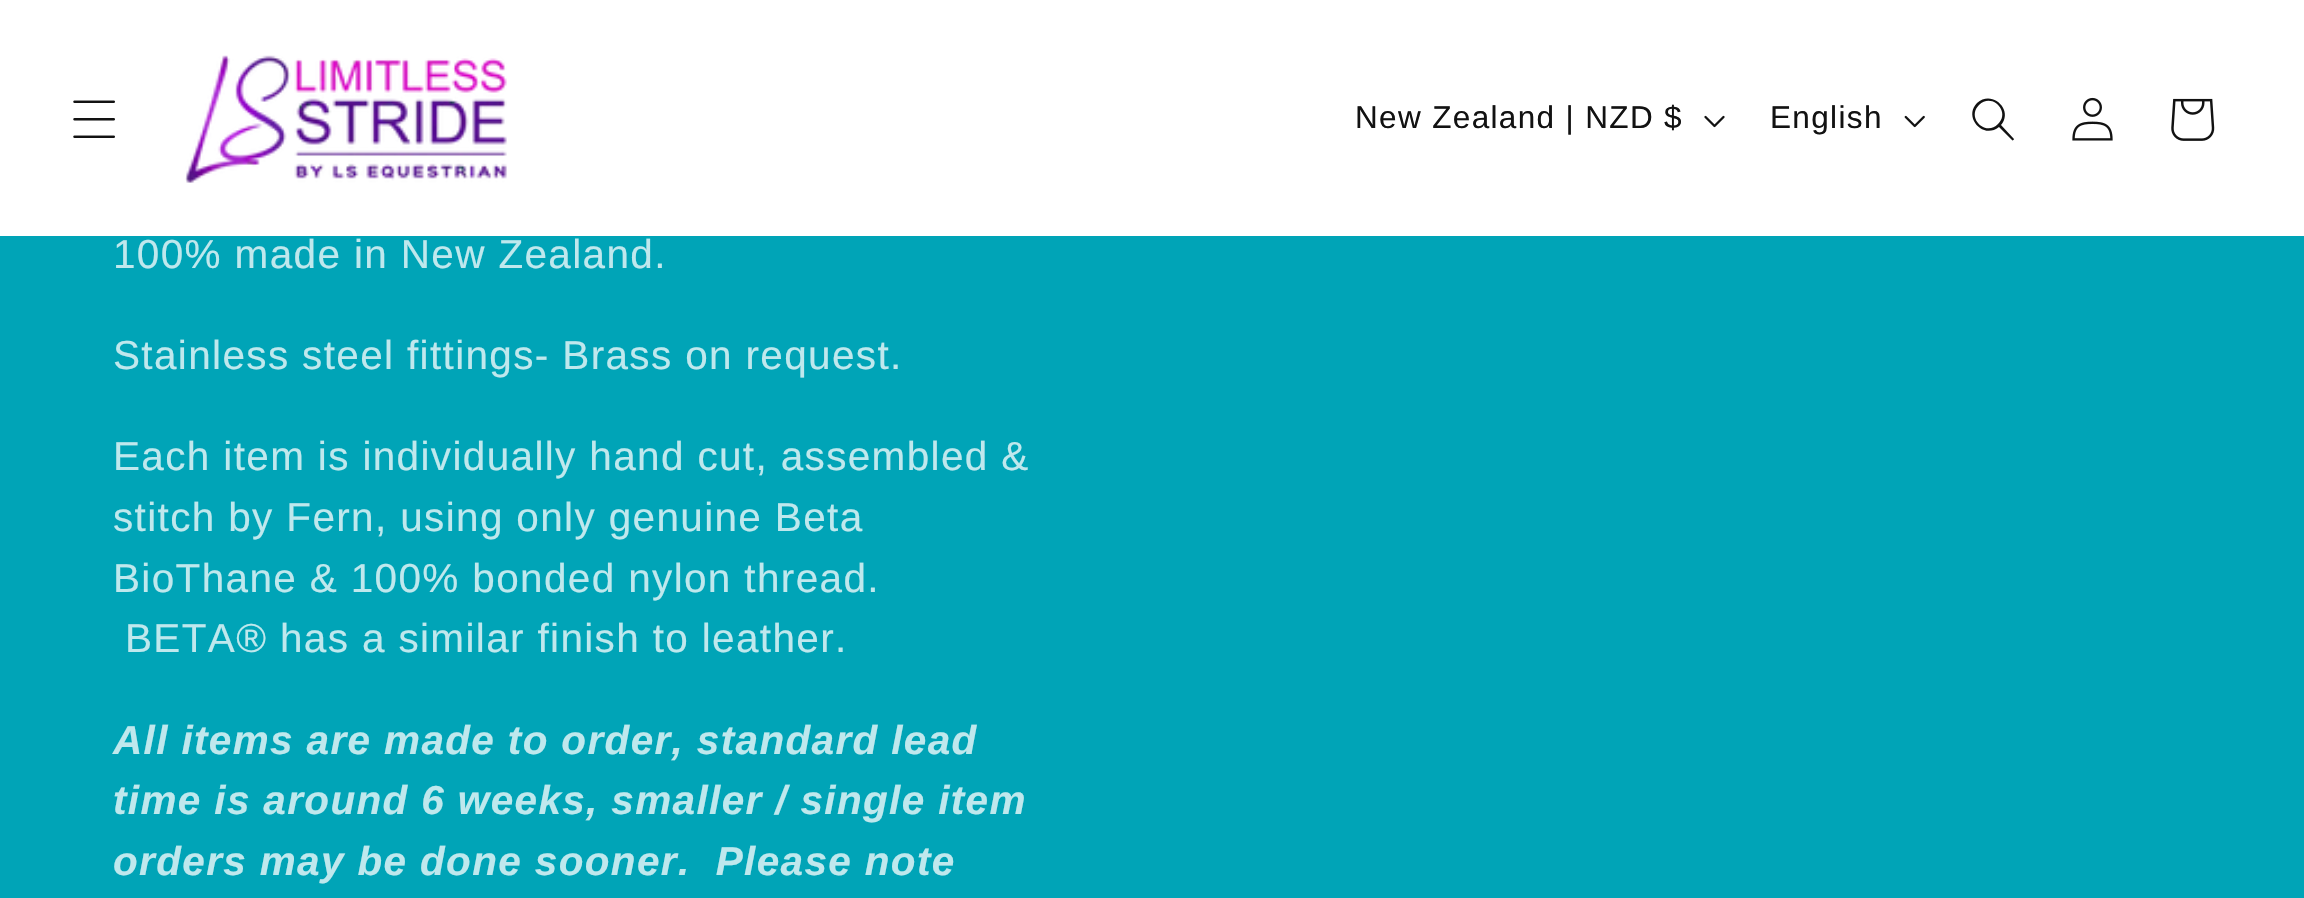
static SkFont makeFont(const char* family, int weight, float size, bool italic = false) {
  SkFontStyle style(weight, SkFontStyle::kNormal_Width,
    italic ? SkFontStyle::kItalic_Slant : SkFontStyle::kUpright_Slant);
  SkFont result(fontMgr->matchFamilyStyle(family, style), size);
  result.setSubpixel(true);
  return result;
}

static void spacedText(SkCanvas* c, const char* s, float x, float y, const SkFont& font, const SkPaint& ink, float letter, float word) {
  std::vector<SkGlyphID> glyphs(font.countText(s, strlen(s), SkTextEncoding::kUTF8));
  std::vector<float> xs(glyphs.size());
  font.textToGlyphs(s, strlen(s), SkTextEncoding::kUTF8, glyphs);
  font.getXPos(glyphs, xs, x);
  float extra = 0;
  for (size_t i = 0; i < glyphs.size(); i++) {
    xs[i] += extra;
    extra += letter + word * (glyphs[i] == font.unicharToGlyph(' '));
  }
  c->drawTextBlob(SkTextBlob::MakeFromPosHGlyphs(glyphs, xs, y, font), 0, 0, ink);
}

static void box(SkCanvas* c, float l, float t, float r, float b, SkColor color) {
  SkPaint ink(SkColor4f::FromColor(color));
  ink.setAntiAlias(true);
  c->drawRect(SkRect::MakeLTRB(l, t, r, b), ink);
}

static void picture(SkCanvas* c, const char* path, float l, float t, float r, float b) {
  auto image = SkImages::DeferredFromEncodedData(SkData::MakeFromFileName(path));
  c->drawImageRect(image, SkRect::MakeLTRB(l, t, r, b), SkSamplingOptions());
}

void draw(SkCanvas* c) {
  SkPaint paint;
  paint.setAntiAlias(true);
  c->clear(0xff00a4b7);
  box(c, 0, 0, 2304, 236, 0xffffffff);
  picture(c, "img_01.png", 73, 100, 115, 138);
  picture(c, "img_02.png", 185, 55, 507, 183);
  SkFont face1 = makeFont("Liberation Sans", 400, 31.5f);
  paint.setColor(0xff121212);
  spacedText(c, "New Zealand | NZD $", 1355, 128, face1, paint, 1.35f, 0);
  picture(c, "img_03.png", 1704, 115, 1725, 128);
  spacedText(c, "English", 1770, 128, face1, paint, 1.35f, 0);
  picture(c, "img_04.png", 1904, 115, 1925, 128);
  c->drawPath(SkPathBuilder(SkPathFillType::kEvenOdd).moveTo(1998, 124).cubicTo(1986, 137, 1966, 118, 1979, 105).cubicTo(1992, 92, 2011, 112, 1998, 124).moveTo(1999, 127).cubicTo(1983, 140, 1963, 117, 1977, 103).cubicTo(1992, 89, 2014, 110, 2001, 125).lineTo(2014, 139).cubicTo(2014, 140, 2012, 141, 2012, 140).close().detach(), paint);
  picture(c, "img_05.png", 2072, 97, 2113, 141);
  picture(c, "img_06.png", 2171, 98, 2215, 141);
  SkFont face2 = makeFont("Liberation Sans", 400, 40.5f);
  paint.setColor(0xffbfe8ed);
  spacedText(c, "100% made in New Zealand.", 113, 268, face2, paint, 1.35f, 0);
  spacedText(c, "Stainless steel fittings- Brass on request.", 113, 369, face2, paint, 1.35f, 0);
  spacedText(c, "Each item is individually hand cut, assembled &", 113, 470, face2, paint, 1.35f, 0);
  spacedText(c, "stitch by Fern, using only genuine Beta", 113, 531, face2, paint, 1.35f, 0);
  spacedText(c, "BioThane & 100% bonded nylon thread.", 113, 592, face2, paint, 1.35f, 0);
  spacedText(c, "BETA® has a similar finish to leather.", 125, 652, face2, paint, 1.35f, 0);
  SkFont face3 = makeFont("Liberation Sans", 700, 40.5f, true);
  spacedText(c, "All items are made to order, standard lead", 113, 754, face3, paint, 1.35f, 0);
  spacedText(c, "time is around 6 weeks, smaller / single item", 113, 814, face3, paint, 1.35f, 0);
  spacedText(c, "orders may be done sooner.  Please note", 113, 875, face3, paint, 1.35f, 0);
}
